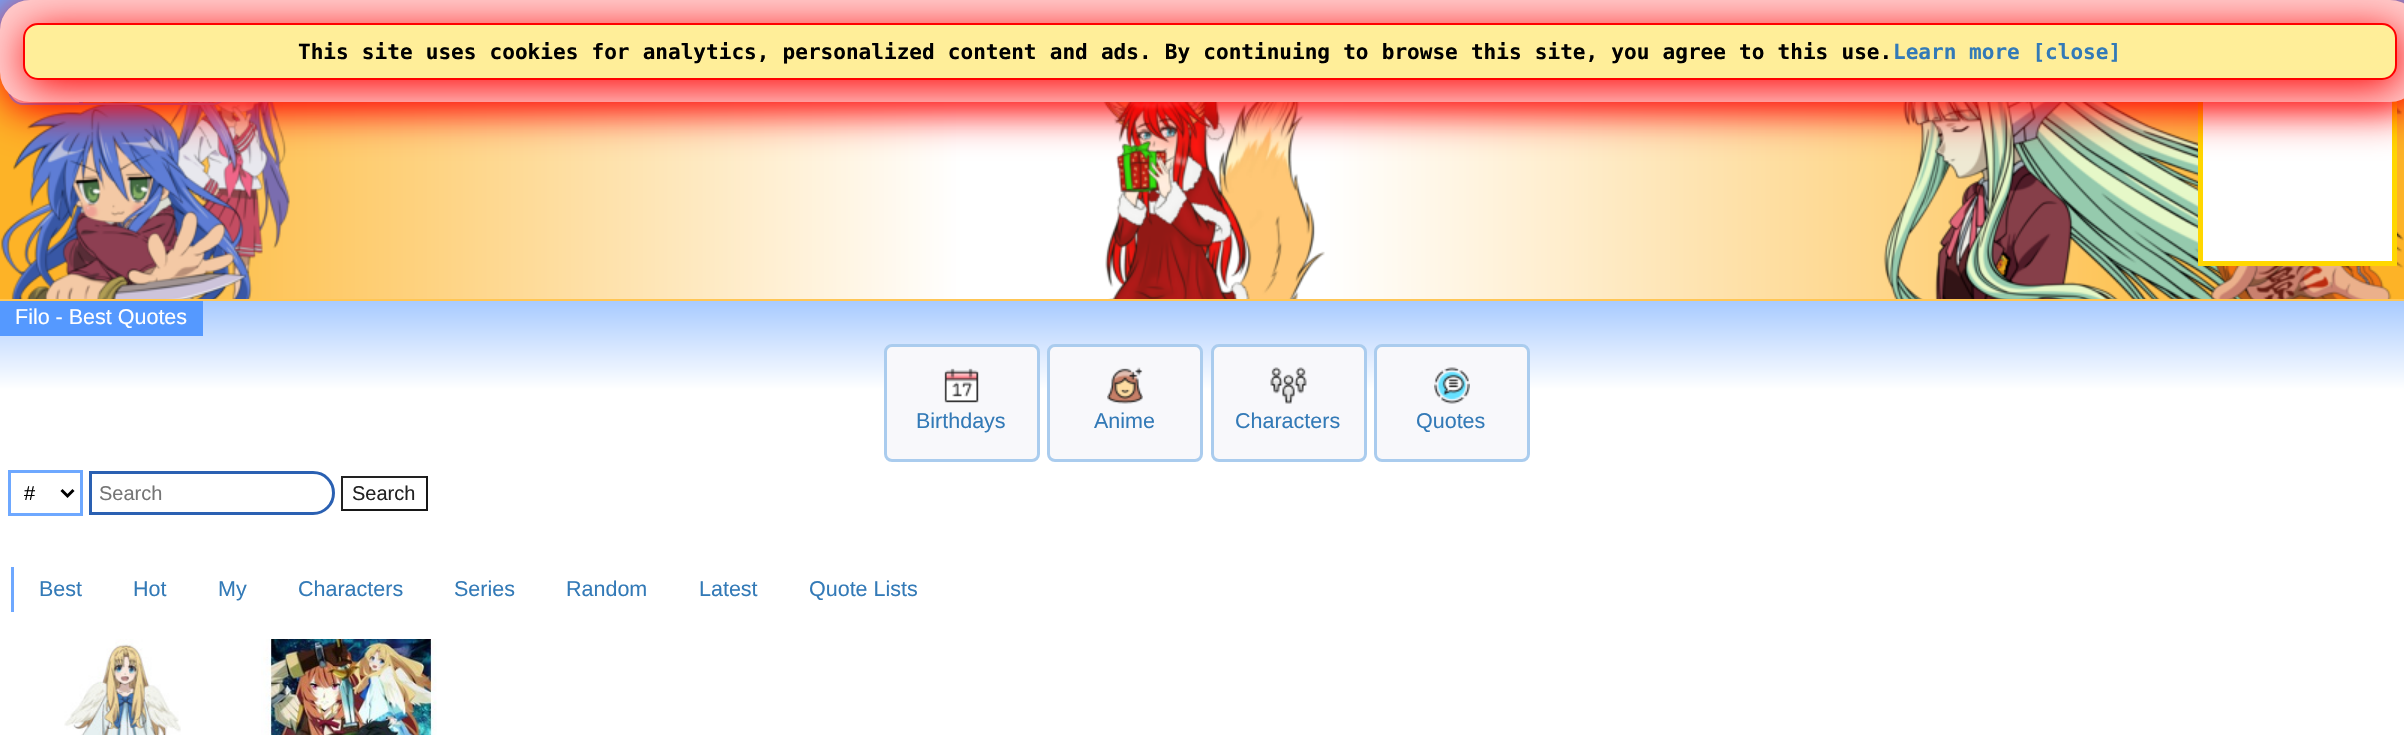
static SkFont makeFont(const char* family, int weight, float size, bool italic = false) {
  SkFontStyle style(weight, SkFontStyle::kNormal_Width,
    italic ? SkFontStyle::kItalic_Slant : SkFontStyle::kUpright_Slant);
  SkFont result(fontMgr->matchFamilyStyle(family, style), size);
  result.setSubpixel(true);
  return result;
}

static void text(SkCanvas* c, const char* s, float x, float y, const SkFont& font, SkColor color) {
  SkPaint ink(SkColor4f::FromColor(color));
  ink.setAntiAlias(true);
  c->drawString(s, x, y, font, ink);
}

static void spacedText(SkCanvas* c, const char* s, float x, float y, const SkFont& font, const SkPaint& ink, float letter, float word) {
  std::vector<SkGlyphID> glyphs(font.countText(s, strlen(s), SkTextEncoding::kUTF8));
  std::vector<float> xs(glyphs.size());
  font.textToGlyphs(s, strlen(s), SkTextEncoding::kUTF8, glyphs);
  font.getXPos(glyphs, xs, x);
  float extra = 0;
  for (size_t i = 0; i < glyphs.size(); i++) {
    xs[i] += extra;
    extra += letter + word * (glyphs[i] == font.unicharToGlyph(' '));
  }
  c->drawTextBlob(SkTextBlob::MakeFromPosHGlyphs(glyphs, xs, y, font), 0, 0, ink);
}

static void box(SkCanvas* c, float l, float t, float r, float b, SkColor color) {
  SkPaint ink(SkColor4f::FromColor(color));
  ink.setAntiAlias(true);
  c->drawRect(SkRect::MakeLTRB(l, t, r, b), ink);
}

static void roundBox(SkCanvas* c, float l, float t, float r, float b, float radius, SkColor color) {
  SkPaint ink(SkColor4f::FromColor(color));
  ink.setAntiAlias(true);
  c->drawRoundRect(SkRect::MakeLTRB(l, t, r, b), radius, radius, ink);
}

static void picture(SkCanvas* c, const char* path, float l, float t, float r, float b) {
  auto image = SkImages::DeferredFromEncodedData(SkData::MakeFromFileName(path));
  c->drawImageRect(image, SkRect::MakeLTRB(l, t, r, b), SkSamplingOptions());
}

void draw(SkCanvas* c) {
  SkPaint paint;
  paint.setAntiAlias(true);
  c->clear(0xff6ea8ff);
  {
    const SkColor colors[] = {0xfffdb327, 0xffffffff, 0xffffffff, 0xfffdb327};
    const float stops[] = {0.02f, 0.4f, 0.55f, 0.98f};
    const SkPoint ends[] = {{0, 179}, {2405, 179}};
    paint.setShader(SkGradientShader::MakeLinear(ends, colors, stops, 4, SkTileMode::kClamp));
    paint.setAlpha(255);
  }
  c->drawRect(SkRect::MakeLTRB(0, 72, 2404, 299), paint);
  picture(c, "img_01.png", 1, 102, 2404, 299);
  box(c, 2203, 101, 2392, 261, 0xffffffff);
  paint.setStyle(SkPaint::kStroke_Style);
  paint.setStrokeWidth(5);
  paint.setShader(nullptr);
  paint.setColor(0xffffd700);
  c->drawRect(SkRect::MakeLTRB(2200.5f, 68.5f, 2394.5f, 263.5f), paint);
  paint.setStyle(SkPaint::kFill_Style);
  paint.setColor(0xffffffff);
  c->drawPath(SkPathBuilder().moveTo(23, 72).lineTo(80, 72).lineTo(80, 104).lineTo(23, 104).cubicTo(15.5f, 104, 9, 97.5f, 9, 90).lineTo(9, 86).cubicTo(9, 78.5f, 15.5f, 72, 23, 72).close().detach(), paint);
  paint.setStyle(SkPaint::kStroke_Style);
  paint.setStrokeWidth(2);
  paint.setColor(0xff6ea8ff);
  c->drawPath(SkPathBuilder().moveTo(23, 72).lineTo(80, 72).lineTo(80, 104).lineTo(23, 104).cubicTo(15.5f, 104, 9, 97.5f, 9, 90).lineTo(9, 86).cubicTo(9, 78.5f, 15.5f, 72, 23, 72).close().detach(), paint);
  c->drawPath(SkPathBuilder().moveTo(82, 72).lineTo(213, 72).cubicTo(220.5f, 72, 227, 78.5f, 227, 86).lineTo(227, 90).cubicTo(227, 97.5f, 220.5f, 104, 213, 104).lineTo(82, 104).close().detach(), paint);
  paint.setStyle(SkPaint::kFill_Style);
  paint.setColor(0xffff0000);
  paint.setMaskFilter(SkMaskFilter::MakeBlur(kNormal_SkBlurStyle, 21.5f));
  c->drawRoundRect(SkRect::MakeLTRB(3, 8, 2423, 110), 30, 30, paint);
  paint.setMaskFilter(nullptr);
  roundBox(c, 0, 0, 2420, 102, 30, 0xffffcccc);
  paint.setMaskFilter(SkMaskFilter::MakeBlur(kNormal_SkBlurStyle, 21));
  c->drawRoundRect(SkRect::MakeLTRB(26, 30, 2400, 87), 15, 15, paint);
  paint.setMaskFilter(nullptr);
  paint.setColor(0xffffee99);
  c->drawRoundRect(SkRect::MakeLTRB(24, 24, 2396, 79), 14, 14, paint);
  paint.setStyle(SkPaint::kStroke_Style);
  paint.setColor(0xffff0000);
  c->drawRoundRect(SkRect::MakeLTRB(24, 24, 2396, 79), 14, 14, paint);
  SkFont face1 = makeFont("DejaVu Sans Mono", 700, 21.05f);
  paint.setStyle(SkPaint::kFill_Style);
  paint.setColor(0xff000000);
  spacedText(c, "This site uses cookies for analytics, personalized content and ads. By continuing to browse this site, you agree to this use.", 298, 59, face1, paint, 0, 0.5f);
  text(c, "Learn more [close]", 1893, 59, face1, 0xff337ab7);
  {
    const SkColor colors[] = {0xffffffff, 0xff6ea8ff, 0xffffffff};
    const float stops[] = {0.04f, 0.05f, 0.09f};
    const SkPoint ends[] = {{1202, 59}, {1202, 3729}};
    paint.setShader(SkGradientShader::MakeLinear(ends, colors, stops, 3, SkTileMode::kClamp));
    paint.setAlpha(255);
  }
  c->drawRect(SkRect::MakeLTRB(0, 301, 2404, 735), paint);
  box(c, 0, 299, 2404, 301, 0xffffc655);
  box(c, 0, 301, 203, 336, 0xff5599ff);
  SkFont face2 = makeFont("Liberation Sans", 400, 21.5f);
  text(c, "Filo - Best Quotes", 15, 324, face2, 0xffffffff);
  paint.setShader(nullptr);
  paint.setColor(0xfff8f8fb);
  c->drawRoundRect(SkRect::MakeLTRB(885.5f, 345.5f, 1038.5f, 460.5f), 6.5f, 6.5f, paint);
  paint.setStyle(SkPaint::kStroke_Style);
  paint.setStrokeWidth(3);
  paint.setColor(0xffaaccee);
  c->drawRoundRect(SkRect::MakeLTRB(885.5f, 345.5f, 1038.5f, 460.5f), 6.5f, 6.5f, paint);
  picture(c, "img_02.png", 944, 368, 979, 403);
  text(c, "Birthdays", 916, 428, face2, 0xff337ab7);
  paint.setStyle(SkPaint::kFill_Style);
  paint.setColor(0xfff8f8fb);
  c->drawRoundRect(SkRect::MakeLTRB(1048.5f, 345.5f, 1201.5f, 460.5f), 6.5f, 6.5f, paint);
  paint.setStyle(SkPaint::kStroke_Style);
  paint.setColor(0xffaaccee);
  c->drawRoundRect(SkRect::MakeLTRB(1048.5f, 345.5f, 1201.5f, 460.5f), 6.5f, 6.5f, paint);
  picture(c, "img_03.png", 1107, 367, 1143, 404);
  text(c, "Anime", 1094, 428, face2, 0xff337ab7);
  paint.setStyle(SkPaint::kFill_Style);
  paint.setColor(0xfff8f8fb);
  c->drawRoundRect(SkRect::MakeLTRB(1212.5f, 345.5f, 1365.5f, 460.5f), 6.5f, 6.5f, paint);
  paint.setStyle(SkPaint::kStroke_Style);
  paint.setColor(0xffaaccee);
  c->drawRoundRect(SkRect::MakeLTRB(1212.5f, 345.5f, 1365.5f, 460.5f), 6.5f, 6.5f, paint);
  picture(c, "img_04.png", 1270, 367, 1307, 404);
  text(c, "Characters", 1235, 428, face2, 0xff337ab7);
  paint.setStyle(SkPaint::kFill_Style);
  paint.setColor(0xfff8f8fb);
  c->drawRoundRect(SkRect::MakeLTRB(1375.5f, 345.5f, 1528.5f, 460.5f), 6.5f, 6.5f, paint);
  paint.setStyle(SkPaint::kStroke_Style);
  paint.setColor(0xffaaccee);
  c->drawRoundRect(SkRect::MakeLTRB(1375.5f, 345.5f, 1528.5f, 460.5f), 6.5f, 6.5f, paint);
  picture(c, "img_05.png", 1434, 367, 1470, 404);
  text(c, "Quotes", 1416, 428, face2, 0xff337ab7);
  paint.setColor(0xff6ea8ff);
  c->drawRect(SkRect::MakeLTRB(9.5f, 471.5f, 81.5f, 514.5f), paint);
  paint.setColor(0xff000000);
  c->drawPath(SkPathBuilder().moveTo(61.5f, 490).lineTo(67.5f, 496).lineTo(73.5f, 490).detach(), paint);
  SkFont face3 = makeFont("Liberation Sans", 400, 20);
  text(c, "#", 24, 500, face3, 0xff000000);
  paint.setColor(0xff2a60b2);
  c->drawPath(SkPathBuilder().moveTo(90.5f, 472.5f).lineTo(313, 472.5f).cubicTo(324.5f, 472.5f, 333.5f, 481.5f, 333.5f, 493).cubicTo(333.5f, 504.5f, 324.5f, 513.5f, 313, 513.5f).lineTo(90.5f, 513.5f).close().detach(), paint);
  text(c, "Search", 99, 500, face3, 0xff757575);
  box(c, 341, 476, 428, 478, 0xff222222);
  box(c, 426, 476, 428, 510, 0xff171717);
  box(c, 341, 509, 428, 511, 0xff171717);
  box(c, 341, 476, 343, 510, 0xff222222);
  text(c, "Search", 352, 500, face3, 0xff222222);
  box(c, 11, 567, 14, 612, 0xff6ea8ff);
  text(c, "Best", 39, 596, face2, 0xff337ab7);
  text(c, "Hot", 133, 596, face2, 0xff337ab7);
  text(c, "My", 218, 596, face2, 0xff337ab7);
  text(c, "Characters", 298, 596, face2, 0xff337ab7);
  text(c, "Series", 454, 596, face2, 0xff337ab7);
  text(c, "Random", 566, 596, face2, 0xff337ab7);
  text(c, "Latest", 699, 596, face2, 0xff337ab7);
  text(c, "Quote Lists", 809, 596, face2, 0xff337ab7);
  picture(c, "img_06.png", 64, 639, 181, 735);
  picture(c, "img_07.png", 261, 639, 437, 735);
}
